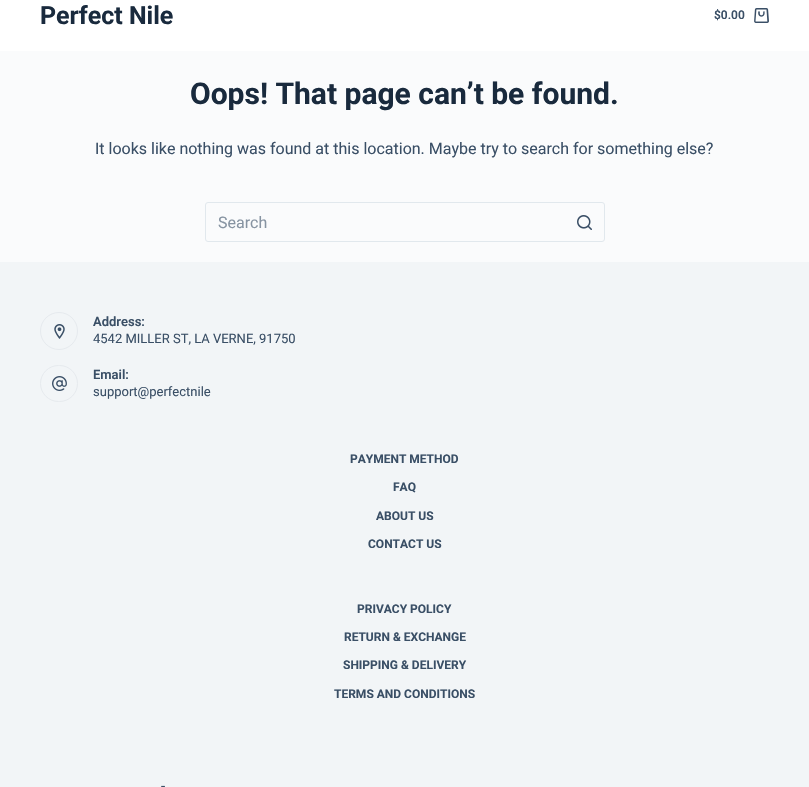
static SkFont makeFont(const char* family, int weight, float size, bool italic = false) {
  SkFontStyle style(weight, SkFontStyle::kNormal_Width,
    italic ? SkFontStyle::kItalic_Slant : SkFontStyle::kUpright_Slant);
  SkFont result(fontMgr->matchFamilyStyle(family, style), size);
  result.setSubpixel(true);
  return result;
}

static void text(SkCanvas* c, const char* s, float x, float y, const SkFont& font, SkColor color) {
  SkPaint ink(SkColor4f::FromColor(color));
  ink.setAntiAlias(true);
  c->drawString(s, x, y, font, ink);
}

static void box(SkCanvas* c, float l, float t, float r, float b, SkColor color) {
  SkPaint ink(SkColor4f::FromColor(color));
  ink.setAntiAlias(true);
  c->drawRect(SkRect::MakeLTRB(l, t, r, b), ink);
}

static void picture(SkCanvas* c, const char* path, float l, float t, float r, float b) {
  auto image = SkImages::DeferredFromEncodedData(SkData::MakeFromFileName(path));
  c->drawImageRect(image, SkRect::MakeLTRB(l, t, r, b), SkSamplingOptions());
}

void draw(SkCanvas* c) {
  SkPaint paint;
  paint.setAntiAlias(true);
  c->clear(0xfffafbfc);
  box(c, 0, 0, 809, 51, 0xffffffff);
  SkFont face1 = makeFont("Roboto", 700, 25);
  text(c, "Perfect Nile", 40, 24, face1, 0xff192a3d);
  SkFont face2 = makeFont("Roboto", 600, 12);
  text(c, "$0.00", 714, 19, face2, 0xff3a4f66);
  picture(c, "img_01.png", 754, 8, 769, 23);
  SkFont face3 = makeFont("Roboto", 700, 30);
  text(c, "Oops! That page can’t be found.", 190, 104, face3, 0xff192a3d);
  SkFont face4 = makeFont("Roboto", 400, 16);
  text(c, "It looks like nothing was found at this location. Maybe try to search for something else?", 95, 154, face4, 0xff3a4f66);
  paint.setStyle(SkPaint::kStroke_Style);
  paint.setStrokeWidth(1);
  paint.setColor(0xffe1e8ed);
  c->drawRoundRect(SkRect::MakeLTRB(205.5f, 202.5f, 604.5f, 241.5f), 2.5f, 2.5f, paint);
  text(c, "Search", 218, 228, face4, 0xff8794a2);
  picture(c, "img_02.png", 577, 215, 592, 230);
  box(c, 0, 262, 809, 787, 0xfff2f5f7);
  paint.setColor(0xffe6eaee);
  c->drawCircle(59, 331, 18.5f, paint);
  picture(c, "img_03.png", 54, 324, 65, 339);
  SkFont face5 = makeFont("Roboto", 600, 13);
  text(c, "Address:", 93, 326, face5, 0xff3a4f66);
  SkFont face6 = makeFont("Roboto", 400, 13);
  text(c, "4542 MILLER ST, LA VERNE, 91750", 93, 343, face6, 0xff3a4f66);
  c->drawRoundRect(SkRect::MakeLTRB(40.5f, 365.5f, 77.5f, 401.5f), 18, 18, paint);
  picture(c, "img_04.png", 52, 376, 67, 391);
  text(c, "Email:", 93, 379, face5, 0xff3a4f66);
  text(c, "support@perfectnile", 93, 396, face6, 0xff3a4f66);
  SkFont face7 = makeFont("Roboto", 700, 12);
  text(c, "PAYMENT METHOD", 350, 463, face7, 0xff3a4f66);
  text(c, "FAQ", 393, 491, face7, 0xff3a4f66);
  text(c, "ABOUT US", 376, 520, face7, 0xff3a4f66);
  text(c, "CONTACT US", 368, 548, face7, 0xff3a4f66);
  text(c, "PRIVACY POLICY", 357, 613, face7, 0xff3a4f66);
  text(c, "RETURN & EXCHANGE", 344, 641, face7, 0xff3a4f66);
  text(c, "SHIPPING & DELIVERY", 343, 669, face7, 0xff3a4f66);
  text(c, "TERMS AND CONDITIONS", 334, 698, face7, 0xff3a4f66);
  SkFont face8 = makeFont("Roboto", 400, 15);
  text(c, "-", 161, 791, face8, 0xff3a4f66);
}
